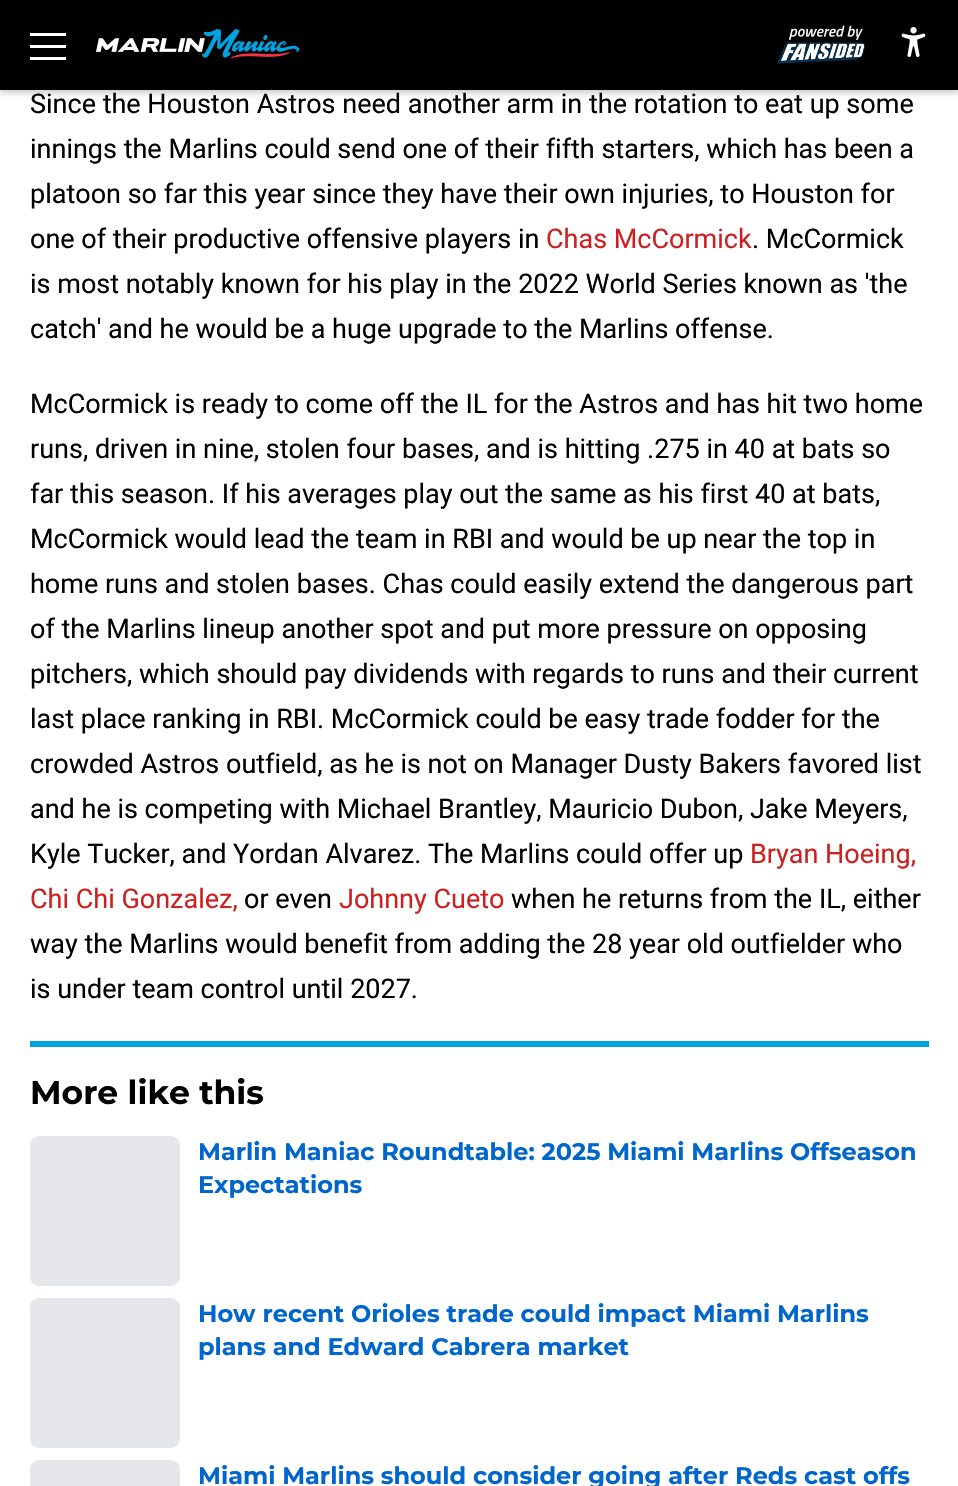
static SkFont makeFont(const char* family, int weight, float size, bool italic = false) {
  SkFontStyle style(weight, SkFontStyle::kNormal_Width,
    italic ? SkFontStyle::kItalic_Slant : SkFontStyle::kUpright_Slant);
  SkFont result(fontMgr->matchFamilyStyle(family, style), size);
  result.setSubpixel(true);
  return result;
}

static void text(SkCanvas* c, const char* s, float x, float y, const SkFont& font, SkColor color) {
  SkPaint ink(SkColor4f::FromColor(color));
  ink.setAntiAlias(true);
  c->drawString(s, x, y, font, ink);
}

static void box(SkCanvas* c, float l, float t, float r, float b, SkColor color) {
  SkPaint ink(SkColor4f::FromColor(color));
  ink.setAntiAlias(true);
  c->drawRect(SkRect::MakeLTRB(l, t, r, b), ink);
}

static void roundBox(SkCanvas* c, float l, float t, float r, float b, float radius, SkColor color) {
  SkPaint ink(SkColor4f::FromColor(color));
  ink.setAntiAlias(true);
  c->drawRoundRect(SkRect::MakeLTRB(l, t, r, b), radius, radius, ink);
}

static void picture(SkCanvas* c, const char* path, float l, float t, float r, float b) {
  auto image = SkImages::DeferredFromEncodedData(SkData::MakeFromFileName(path));
  c->drawImageRect(image, SkRect::MakeLTRB(l, t, r, b), SkSamplingOptions());
}

void draw(SkCanvas* c) {
  SkPaint paint;
  paint.setAntiAlias(true);
  c->clear(0xffffffff);
  paint.setColor(0x33000000);
  paint.setMaskFilter(SkMaskFilter::MakeBlur(kNormal_SkBlurStyle, 3));
  c->drawRect(SkRect::MakeLTRB(0, 3, 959, 93), paint);
  paint.setMaskFilter(nullptr);
  box(c, 0, 0, 958, 90, 0xff000000);
  box(c, 30, 33, 66, 36, 0xffffffff);
  box(c, 30, 45, 66, 48, 0xffffffff);
  box(c, 30, 57, 66, 60, 0xffffffff);
  picture(c, "img_01.png", 96, 29, 299, 59);
  picture(c, "img_02.png", 777, 25, 866, 64);
  picture(c, "img_03.png", 901, 27, 926, 57);
  SkFont face1 = makeFont("Roboto", 400, 27);
  text(c, "Since the Houston Astros need another arm in the rotation to eat up some", 30, 113, face1, 0xff000000);
  text(c, "innings the Marlins could send one of their fifth starters, which has been a", 30, 158, face1, 0xff000000);
  text(c, "platoon so far this year since they have their own injuries, to Houston for", 30, 203, face1, 0xff000000);
  text(c, "one of their productive offensive players in", 30, 248, face1, 0xff000000);
  text(c, "Chas McCormick", 546, 248, face1, 0xffcc2121);
  text(c, ". McCormick", 752, 248, face1, 0xff000000);
  text(c, "is most notably known for his play in the 2022 World Series known as 'the", 30, 293, face1, 0xff000000);
  text(c, "catch' and he would be a huge upgrade to the Marlins offense.", 30, 338, face1, 0xff000000);
  text(c, "McCormick is ready to come off the IL for the Astros and has hit two home", 30, 413, face1, 0xff000000);
  text(c, "runs, driven in nine, stolen four bases, and is hitting .275 in 40 at bats so", 30, 458, face1, 0xff000000);
  text(c, "far this season. If his averages play out the same as his first 40 at bats,", 30, 503, face1, 0xff000000);
  text(c, "McCormick would lead the team in RBI and would be up near the top in", 30, 548, face1, 0xff000000);
  text(c, "home runs and stolen bases. Chas could easily extend the dangerous part", 30, 593, face1, 0xff000000);
  text(c, "of the Marlins lineup another spot and put more pressure on opposing", 30, 638, face1, 0xff000000);
  text(c, "pitchers, which should pay dividends with regards to runs and their current", 30, 683, face1, 0xff000000);
  text(c, "last place ranking in RBI. McCormick could be easy trade fodder for the", 30, 728, face1, 0xff000000);
  text(c, "crowded Astros outfield, as he is not on Manager Dusty Bakers favored list", 30, 773, face1, 0xff000000);
  text(c, "and he is competing with Michael Brantley, Mauricio Dubon, Jake Meyers,", 30, 818, face1, 0xff000000);
  text(c, "Kyle Tucker, and Yordan Alvarez. The Marlins could offer up", 30, 863, face1, 0xff000000);
  text(c, "Bryan Hoeing,", 750, 863, face1, 0xffcc2121);
  text(c, "Chi Chi Gonzalez,", 30, 908, face1, 0xffcc2121);
  text(c, "or even", 244, 908, face1, 0xff000000);
  text(c, "Johnny Cueto", 339, 908, face1, 0xffcc2121);
  text(c, "when he returns from the IL, either", 511, 908, face1, 0xff000000);
  text(c, "way the Marlins would benefit from adding the 28 year old outfielder who", 30, 953, face1, 0xff000000);
  text(c, "is under team control until 2027.", 30, 998, face1, 0xff000000);
  box(c, 30, 1041, 929, 1047, 0xff00a3e0);
  SkFont face2 = makeFont("Montserrat", 100, 33);
  text(c, "More like this", 30, 1104, face2, 0xff000000);
  roundBox(c, 30, 1136, 180, 1286, 9, 0xffe5e7eb);
  SkFont face3 = makeFont("Montserrat", 100, 24);
  text(c, "Marlin Maniac Roundtable: 2025 Miami Marlins Offseason", 198, 1160, face3, 0xff0066cc);
  text(c, "Expectations", 198, 1193, face3, 0xff0066cc);
  roundBox(c, 30, 1298, 180, 1448, 9, 0xffe5e7eb);
  text(c, "How recent Orioles trade could impact Miami Marlins", 198, 1322, face3, 0xff0066cc);
  text(c, "plans and Edward Cabrera market", 198, 1355, face3, 0xff0066cc);
  roundBox(c, 30, 1460, 180, 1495, 9, 0xffe5e7eb);
  text(c, "Miami Marlins should consider going after Reds cast offs", 198, 1484, face3, 0xff0066cc);
}
